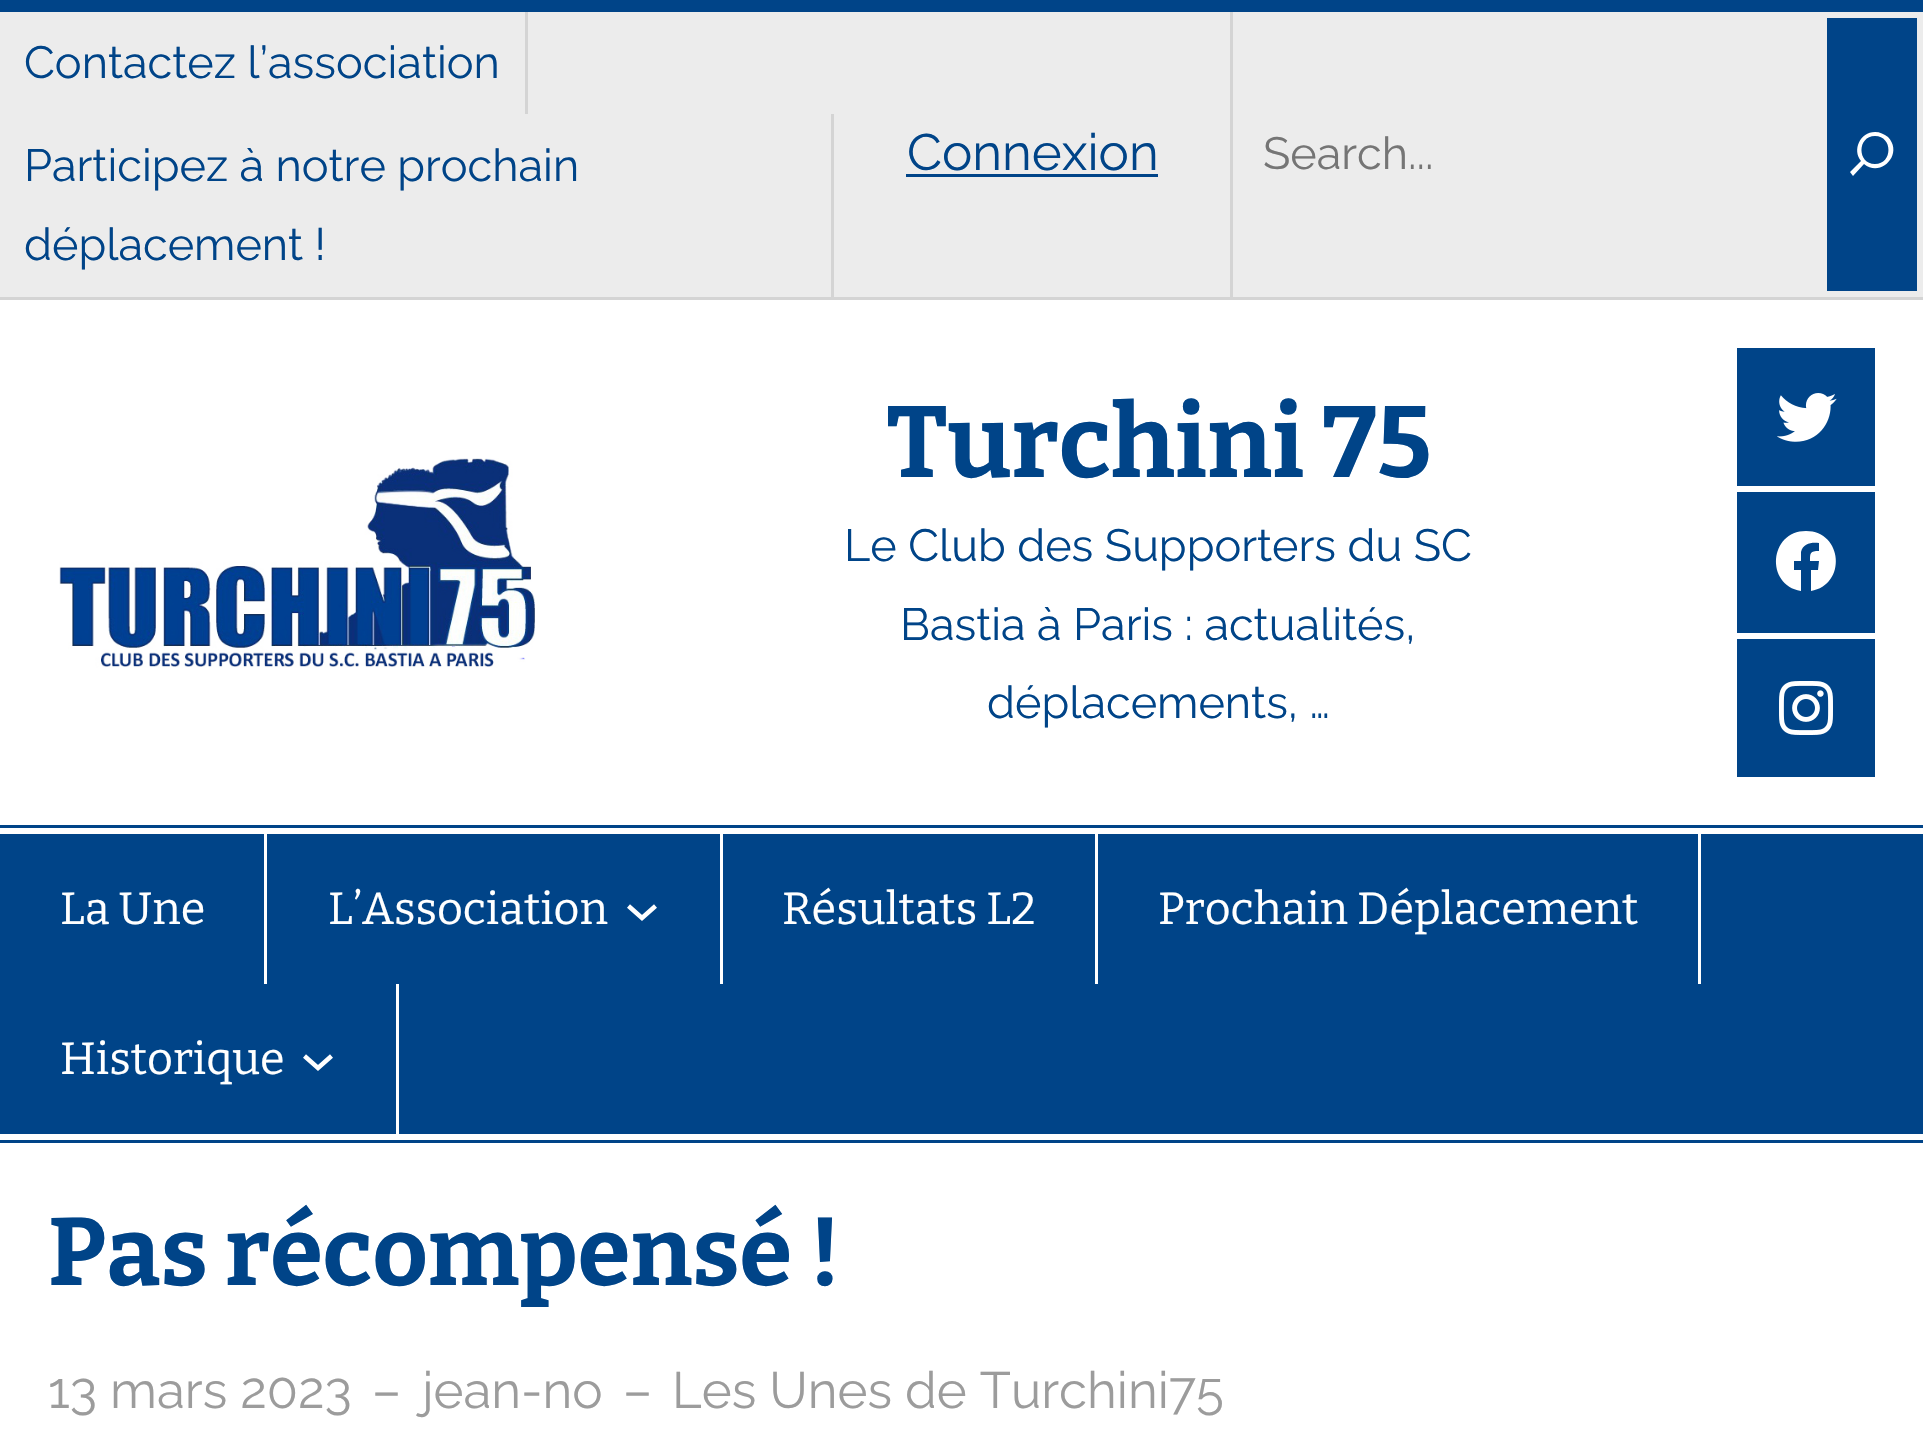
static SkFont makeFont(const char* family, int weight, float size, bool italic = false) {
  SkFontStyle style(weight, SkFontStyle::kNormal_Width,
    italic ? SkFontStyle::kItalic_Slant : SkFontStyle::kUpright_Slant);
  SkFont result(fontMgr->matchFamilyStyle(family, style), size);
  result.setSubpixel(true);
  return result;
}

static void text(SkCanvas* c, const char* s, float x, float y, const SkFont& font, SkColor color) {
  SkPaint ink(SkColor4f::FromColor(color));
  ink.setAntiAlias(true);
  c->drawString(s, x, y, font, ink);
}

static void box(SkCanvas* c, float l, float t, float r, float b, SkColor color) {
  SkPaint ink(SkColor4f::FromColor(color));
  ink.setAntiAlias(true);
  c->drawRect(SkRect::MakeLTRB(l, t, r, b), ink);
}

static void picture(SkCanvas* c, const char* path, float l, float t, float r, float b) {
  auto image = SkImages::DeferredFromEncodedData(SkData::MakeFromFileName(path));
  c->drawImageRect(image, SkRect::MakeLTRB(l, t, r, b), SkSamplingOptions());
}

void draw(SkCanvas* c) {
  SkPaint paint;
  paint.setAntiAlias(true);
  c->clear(0xffffffff);
  box(c, 0, 0, 1923, 12, 0xff004488);
  box(c, 0, 12, 1923, 297, 0xffececec);
  box(c, 0, 297, 1923, 300, 0xffd4d4d4);
  box(c, 525, 12, 528, 114, 0xffd4d4d4);
  SkFont face1 = makeFont("Raleway", 400, 45);
  text(c, "Contactez l’association", 24, 78, face1, 0xff004488);
  box(c, 831, 114, 834, 297, 0xffd4d4d4);
  text(c, "Participez à notre prochain", 24, 181, face1, 0xff004488);
  text(c, "déplacement !", 24, 260, face1, 0xff004488);
  SkFont face2 = makeFont("Raleway", 400, 51);
  text(c, "Connexion", 907, 170, face2, 0xff004488);
  box(c, 906, 174, 1158, 177, 0xff004488);
  box(c, 1230, 12, 1233, 297, 0xffd4d4d4);
  text(c, "Search...", 1263, 169, face1, 0xff757575);
  box(c, 1827, 18, 1917, 291, 0xff004488);
  paint.setColor(0xffffffff);
  c->drawPath(SkPathBuilder().moveTo(1875, 132).cubicTo(1860, 132, 1852, 150, 1861, 161).lineTo(1850, 172).lineTo(1853, 176).lineTo(1864, 164).cubicTo(1881, 178, 1904, 154, 1888, 137).cubicTo(1884, 134, 1880, 132, 1875, 132).close().moveTo(1875, 164).cubicTo(1857, 164, 1857, 136, 1875, 136).cubicTo(1893, 136, 1893, 164, 1875, 164).close().detach(), paint);
  picture(c, "img_01.png", 59, 458, 535, 668);
  SkFont face3 = makeFont("Bitter", 700, 101);
  text(c, "Turchini 75", 886, 477, face3, 0xff004488);
  text(c, "Le Club des Supporters du SC", 844, 561, face1, 0xff004488);
  text(c, "Bastia à Paris : actualités,", 900, 640, face1, 0xff004488);
  text(c, "déplacements, …", 987, 718, face1, 0xff004488);
  box(c, 1737, 348, 1875, 486, 0xff004488);
  picture(c, "img_02.png", 1777, 393, 1837, 442);
  box(c, 1737, 492, 1875, 633, 0xff004488);
  c->drawPath(SkPathBuilder().moveTo(1806, 531).cubicTo(1769, 531, 1765, 585, 1801, 591).lineTo(1801, 570).lineTo(1794, 570).lineTo(1794, 561).lineTo(1801, 561).lineTo(1801, 552).cubicTo(1803, 543, 1812, 542, 1819, 543).lineTo(1819, 551).cubicTo(1810, 551, 1810, 553, 1810, 561).lineTo(1819, 561).lineTo(1818, 570).lineTo(1811, 570).lineTo(1811, 591).cubicTo(1847, 585, 1843, 531, 1806, 531).close().detach(), paint);
  box(c, 1737, 639, 1875, 777, 0xff004488);
  picture(c, "img_03.png", 1779, 681, 1833, 735);
  box(c, 0, 825, 1923, 1143, 0xff004488);
  box(c, 0, 828, 1923, 834, 0xffffffff);
  box(c, 0, 1134, 1923, 1140, 0xffffffff);
  box(c, 264, 834, 267, 984, 0xffffffff);
  SkFont face4 = makeFont("Bitter", 400, 45);
  text(c, "La Une", 60, 924, face4, 0xffffffff);
  box(c, 720, 834, 723, 984, 0xffffffff);
  text(c, "L’Association", 328, 924, face4, 0xffffffff);
  paint.setStyle(SkPaint::kStroke_Style);
  paint.setStrokeWidth(4.5f);
  c->drawPath(SkPathBuilder().moveTo(628.5f, 906).lineTo(642, 918).lineTo(655.5f, 906).detach(), paint);
  box(c, 1095, 834, 1098, 984, 0xffffffff);
  text(c, "Résultats L2", 782, 924, face4, 0xffffffff);
  box(c, 1698, 834, 1701, 984, 0xffffffff);
  text(c, "Prochain Déplacement", 1158, 924, face4, 0xffffffff);
  box(c, 396, 984, 399, 1134, 0xffffffff);
  text(c, "Historique", 60, 1074, face4, 0xffffffff);
  c->drawPath(SkPathBuilder().moveTo(304.5f, 1056).lineTo(318, 1068).lineTo(331.5f, 1056).detach(), paint);
  SkFont face5 = makeFont("Bitter", 700, 96);
  text(c, "Pas récompensé !", 48, 1285, face5, 0xff004488);
  text(c, "13 mars 2023", 48, 1408, face2, 0xff9c9c9c);
  text(c, "–", 372, 1408, face2, 0xff9c9c9c);
  text(c, "jean-no", 422, 1408, face2, 0xff9c9c9c);
  text(c, "–", 623, 1408, face2, 0xff9c9c9c);
  text(c, "Les Unes de Turchini75", 672, 1408, face2, 0xff9c9c9c);
}
